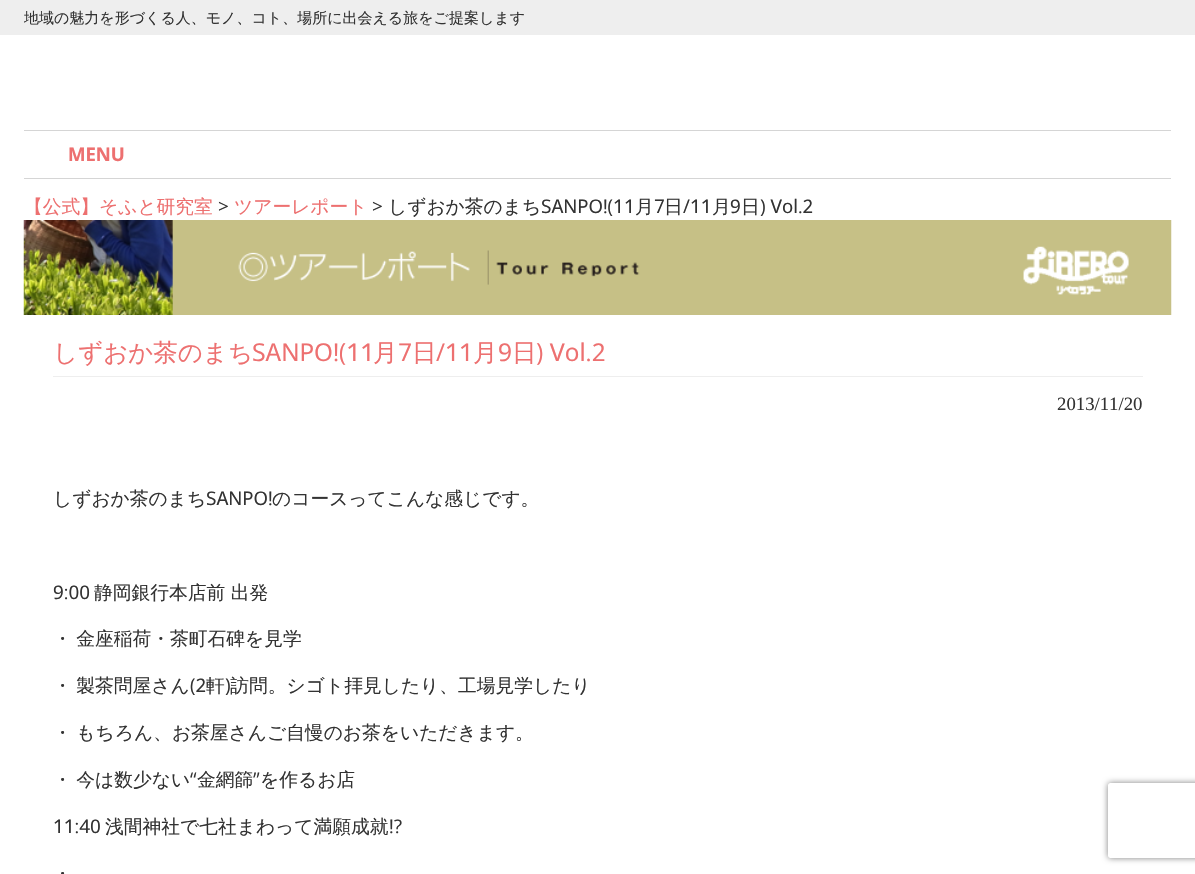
static SkFont makeFont(const char* family, int weight, float size, bool italic = false) {
  SkFontStyle style(weight, SkFontStyle::kNormal_Width,
    italic ? SkFontStyle::kItalic_Slant : SkFontStyle::kUpright_Slant);
  SkFont result(fontMgr->matchFamilyStyle(family, style), size);
  result.setSubpixel(true);
  return result;
}

static void text(SkCanvas* c, const char* s, float x, float y, const SkFont& font, SkColor color) {
  SkPaint ink(SkColor4f::FromColor(color));
  ink.setAntiAlias(true);
  c->drawString(s, x, y, font, ink);
}

static void spacedText(SkCanvas* c, const char* s, float x, float y, const SkFont& font, const SkPaint& ink, float letter, float word) {
  std::vector<SkGlyphID> glyphs(font.countText(s, strlen(s), SkTextEncoding::kUTF8));
  std::vector<float> xs(glyphs.size());
  font.textToGlyphs(s, strlen(s), SkTextEncoding::kUTF8, glyphs);
  font.getXPos(glyphs, xs, x);
  float extra = 0;
  for (size_t i = 0; i < glyphs.size(); i++) {
    xs[i] += extra;
    extra += letter + word * (glyphs[i] == font.unicharToGlyph(' '));
  }
  c->drawTextBlob(SkTextBlob::MakeFromPosHGlyphs(glyphs, xs, y, font), 0, 0, ink);
}

static void box(SkCanvas* c, float l, float t, float r, float b, SkColor color) {
  SkPaint ink(SkColor4f::FromColor(color));
  ink.setAntiAlias(true);
  c->drawRect(SkRect::MakeLTRB(l, t, r, b), ink);
}

static void picture(SkCanvas* c, const char* path, float l, float t, float r, float b) {
  auto image = SkImages::DeferredFromEncodedData(SkData::MakeFromFileName(path));
  c->drawImageRect(image, SkRect::MakeLTRB(l, t, r, b), SkSamplingOptions());
}

void draw(SkCanvas* c) {
  SkPaint paint;
  paint.setAntiAlias(true);
  c->clear(0xffffffff);
  box(c, 0, 0, 1195, 35, 0xffeeeeee);
  SkFont face1 = makeFont("WenQuanYi Zen Hei", 500, 15);
  text(c, "地域の魅力を形づくる人、モノ、コト、場所に出会える旅をご提案します", 24, 23, face1, 0xff333333);
  box(c, 24, 130, 1171, 131, 0xffd5d5d5);
  box(c, 24, 178, 1171, 179, 0xffd5d5d5);
  SkFont face2 = makeFont("Noto Sans Hebrew", 700, 18.75f);
  text(c, "MENU", 68, 161, face2, 0xffed7070);
  SkFont face3 = makeFont("WenQuanYi Zen Hei", 500, 18.75f);
  text(c, "【公式】そふと研究室", 24, 213, face3, 0xffed7070);
  SkFont face4 = makeFont("Noto Sans Hebrew", 400, 18.75f);
  text(c, ">", 218, 213, face4, 0xff333333);
  text(c, "ツアーレポート", 234, 213, face3, 0xffed7070);
  text(c, ">", 372, 213, face4, 0xff333333);
  text(c, "しずおか茶のまち", 388, 213, face3, 0xff333333);
  text(c, "SANPO!(11", 541, 213, face4, 0xff333333);
  text(c, "月", 635, 213, face3, 0xff333333);
  text(c, "7", 654, 213, face4, 0xff333333);
  text(c, "日", 664, 213, face3, 0xff333333);
  text(c, "/11", 683, 213, face4, 0xff333333);
  text(c, "月", 712, 213, face3, 0xff333333);
  text(c, "9", 730, 213, face4, 0xff333333);
  text(c, "日", 741, 213, face3, 0xff333333);
  text(c, ") Vol.2", 760, 213, face4, 0xff333333);
  picture(c, "img_01.png", 23, 220, 1172, 315);
  box(c, 53, 376, 1143, 377, 0xffeeeeee);
  SkFont face5 = makeFont("WenQuanYi Zen Hei", 500, 24.5f);
  text(c, "しずおか茶のまち", 53, 361, face5, 0xffed7070);
  SkFont face6 = makeFont("Noto Sans Hebrew", 400, 24.5f);
  text(c, "SANPO!(11", 252, 361, face6, 0xffed7070);
  text(c, "月", 373, 361, face5, 0xffed7070);
  text(c, "7", 398, 361, face6, 0xffed7070);
  text(c, "日", 412, 361, face5, 0xffed7070);
  text(c, "/11", 436, 361, face6, 0xffed7070);
  text(c, "月", 473, 361, face5, 0xffed7070);
  text(c, "9", 498, 361, face6, 0xffed7070);
  text(c, "日", 512, 361, face5, 0xffed7070);
  text(c, ") Vol.2", 536, 361, face6, 0xffed7070);
  SkFont face7 = makeFont("Liberation Serif", 400, 18.75f);
  text(c, "2013/11/20", 1057, 410, face7, 0xff333333);
  text(c, "しずおか茶のまち", 53, 505, face3, 0xff333333);
  text(c, "SANPO!", 206, 505, face4, 0xff333333);
  text(c, "のコースってこんな感じです。", 272, 505, face3, 0xff333333);
  text(c, "9:00", 53, 599, face4, 0xff333333);
  text(c, "静岡銀行本店前 出発", 94, 599, face3, 0xff333333);
  paint.setColor(0xff333333);
  spacedText(c, "・ 金座稲荷・茶町石碑を見学", 53, 645, face3, paint, 0, -1);
  spacedText(c, "・ 製茶問屋さん", 53, 692, face3, paint, 0, -1);
  text(c, "(2", 190, 692, face4, 0xff333333);
  text(c, "軒 訪問。シゴト拝見したり、工場見学したり", 206, 692, face3, 0xff333333);
  text(c, ")", 225, 692, face4, 0xff333333);
  spacedText(c, "・ もちろん、お茶屋さんご自慢のお茶をいただきます。", 53, 739, face3, paint, 0, -1);
  spacedText(c, "・ 今は数少ない", 53, 786, face3, paint, 0, -1);
  text(c, "“", 190, 786, face4, 0xff333333);
  text(c, "金網篩", 197, 786, face3, 0xff333333);
  text(c, "”", 253, 786, face4, 0xff333333);
  text(c, "を作るお店", 260, 786, face3, 0xff333333);
  text(c, "11:40", 53, 833, face4, 0xff333333);
  text(c, "浅間神社で七社まわって満願成就", 105, 833, face3, 0xff333333);
  text(c, "!?", 389, 833, face4, 0xff333333);
  text(c, "・", 53, 880, face3, 0xff333333);
  c->save();
  c->clipPath(SkPathBuilder(SkPathFillType::kEvenOdd).moveTo(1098, 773).lineTo(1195, 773).lineTo(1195, 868).lineTo(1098, 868).close().moveTo(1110.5f, 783).lineTo(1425.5f, 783).cubicTo(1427, 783, 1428, 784, 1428, 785.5f).lineTo(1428, 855.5f).cubicTo(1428, 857, 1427, 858, 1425.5f, 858).lineTo(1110.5f, 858).cubicTo(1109, 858, 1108, 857, 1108, 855.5f).lineTo(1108, 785.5f).cubicTo(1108, 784, 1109, 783, 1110.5f, 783).close().detach(), true);
  paint.setColor(0xff808080);
  paint.setMaskFilter(SkMaskFilter::MakeBlur(kNormal_SkBlurStyle, 3));
  c->drawRoundRect(SkRect::MakeLTRB(1108, 783, 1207, 858), 2.5f, 2.5f, paint);
  paint.setMaskFilter(nullptr);
  c->restore();
}
